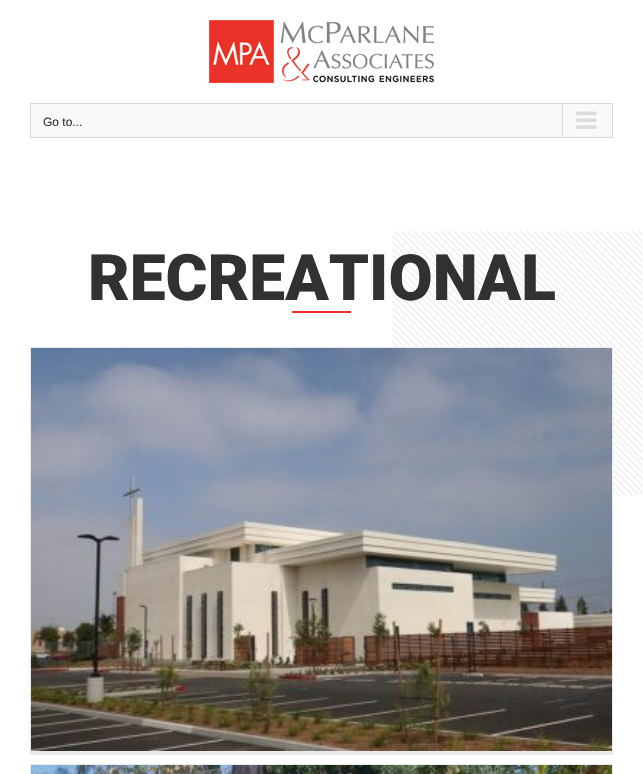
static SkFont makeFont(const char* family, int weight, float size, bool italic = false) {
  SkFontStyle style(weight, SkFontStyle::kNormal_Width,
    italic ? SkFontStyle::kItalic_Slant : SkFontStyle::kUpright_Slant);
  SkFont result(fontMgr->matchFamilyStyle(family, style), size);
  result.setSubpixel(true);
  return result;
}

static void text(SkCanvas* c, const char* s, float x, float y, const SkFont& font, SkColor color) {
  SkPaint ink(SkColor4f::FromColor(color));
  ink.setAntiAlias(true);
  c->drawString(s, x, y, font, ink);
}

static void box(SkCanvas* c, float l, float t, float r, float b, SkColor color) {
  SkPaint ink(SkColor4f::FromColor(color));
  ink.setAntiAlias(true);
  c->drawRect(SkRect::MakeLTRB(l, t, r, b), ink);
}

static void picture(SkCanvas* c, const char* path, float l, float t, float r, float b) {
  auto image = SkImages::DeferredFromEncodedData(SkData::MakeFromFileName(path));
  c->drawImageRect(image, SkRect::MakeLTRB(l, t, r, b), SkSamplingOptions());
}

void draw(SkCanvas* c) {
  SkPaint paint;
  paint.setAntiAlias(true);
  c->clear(0xffffffff);
  picture(c, "img_01.png", 209, 20, 434, 83);
  paint.setColor(0xfff9f9f9);
  c->drawRect(SkRect::MakeLTRB(30.5f, 103.5f, 612.5f, 137.5f), paint);
  paint.setStyle(SkPaint::kStroke_Style);
  paint.setStrokeWidth(1);
  paint.setColor(0xffdadada);
  c->drawRect(SkRect::MakeLTRB(30.5f, 103.5f, 612.5f, 137.5f), paint);
  SkFont face1 = makeFont("Liberation Sans", 400, 12);
  text(c, "Go to...", 43, 126, face1, 0xff323031);
  box(c, 562, 104, 563, 137, 0xffdadada);
  picture(c, "img_02.png", 576, 111, 597, 129);
  picture(c, "img_03.png", 392, 231, 643, 496);
  SkFont face2 = makeFont("Roboto", 900, 64);
  text(c, "RECREATIONAL", 88, 300, face2, 0xff323031);
  box(c, 292, 311, 351, 313, 0xffee2e24);
  box(c, 30, 347, 613, 348, 0xffebeaea);
  box(c, 612, 347, 613, 755, 0xffebeaea);
  box(c, 30, 752, 613, 755, 0xffebeaea);
  box(c, 30, 347, 31, 755, 0xffebeaea);
  box(c, 31, 751, 612, 752, 0xffebeaea);
  picture(c, "img_04.png", 31, 348, 612, 751);
  box(c, 30, 764, 613, 765, 0xffebeaea);
  box(c, 612, 764, 613, 774, 0xffebeaea);
  box(c, 30, 764, 31, 774, 0xffebeaea);
  picture(c, "img_05.png", 31, 765, 612, 774);
}
